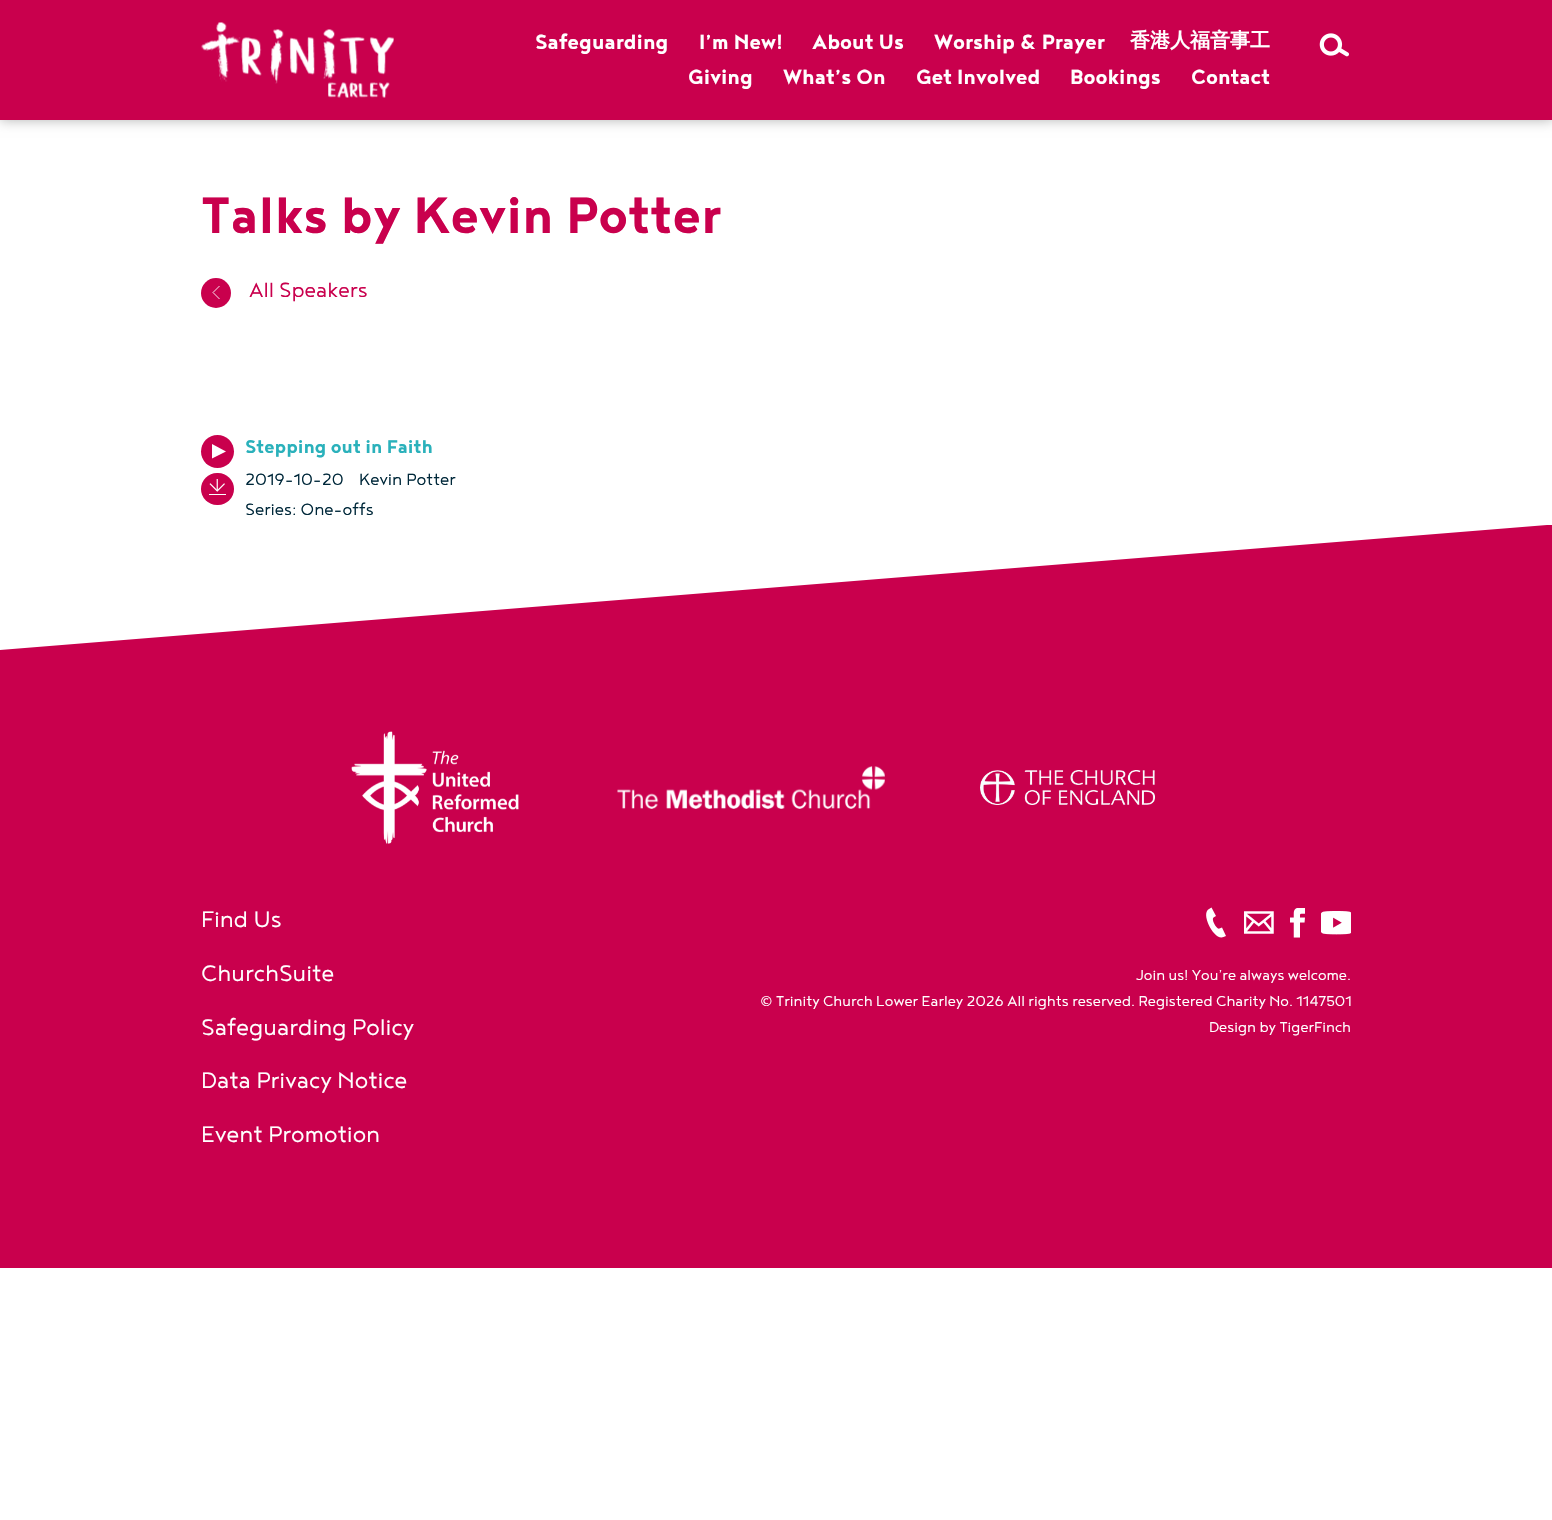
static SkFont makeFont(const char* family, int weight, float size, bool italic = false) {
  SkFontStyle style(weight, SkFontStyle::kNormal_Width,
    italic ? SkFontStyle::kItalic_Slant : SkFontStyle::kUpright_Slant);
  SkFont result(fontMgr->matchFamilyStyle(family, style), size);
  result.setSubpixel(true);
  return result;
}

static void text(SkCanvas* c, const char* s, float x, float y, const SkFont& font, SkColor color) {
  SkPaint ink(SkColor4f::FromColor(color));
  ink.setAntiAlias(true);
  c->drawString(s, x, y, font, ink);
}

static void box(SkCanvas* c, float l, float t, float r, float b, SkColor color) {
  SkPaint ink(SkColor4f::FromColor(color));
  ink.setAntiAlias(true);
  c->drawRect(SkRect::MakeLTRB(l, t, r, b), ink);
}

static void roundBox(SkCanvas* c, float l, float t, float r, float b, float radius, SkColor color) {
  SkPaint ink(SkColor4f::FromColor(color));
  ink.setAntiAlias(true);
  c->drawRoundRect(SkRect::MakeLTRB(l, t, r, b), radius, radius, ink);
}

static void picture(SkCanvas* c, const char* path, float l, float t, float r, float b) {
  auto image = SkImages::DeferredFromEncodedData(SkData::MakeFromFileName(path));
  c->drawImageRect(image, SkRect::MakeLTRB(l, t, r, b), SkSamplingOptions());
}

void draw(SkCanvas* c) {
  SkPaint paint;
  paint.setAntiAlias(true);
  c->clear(0xffffffff);
  paint.setColor(0x4d000000);
  paint.setMaskFilter(SkMaskFilter::MakeBlur(kNormal_SkBlurStyle, 6));
  c->drawRect(SkRect::MakeLTRB(0, 0, 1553, 120), paint);
  paint.setMaskFilter(nullptr);
  box(c, 0, 0, 1552, 120, 0xffc9004d);
  picture(c, "img_01.png", 201, 22, 394, 98);
  SkFont face1 = makeFont("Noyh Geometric", 700, 25);
  text(c, "Safeguarding", 535, 49, face1, 0xffffffff);
  text(c, "I’m New!", 699, 49, face1, 0xffffffff);
  text(c, "About Us", 812, 49, face1, 0xffffffff);
  text(c, "Worship & Prayer", 934, 49, face1, 0xffffffff);
  SkFont face2 = makeFont("WenQuanYi Zen Hei", 700, 20);
  text(c, "香港人福音事工", 1130, 47, face2, 0xffffffff);
  text(c, "Giving", 688, 84, face1, 0xffffffff);
  text(c, "What’s On", 783, 84, face1, 0xffffffff);
  text(c, "Get Involved", 916, 84, face1, 0xffffffff);
  text(c, "Bookings", 1070, 84, face1, 0xffffffff);
  text(c, "Contact", 1191, 84, face1, 0xffffffff);
  picture(c, "img_02.png", 1319, 33, 1349, 57);
  SkFont face3 = makeFont("Noyh Geometric", 700, 62.5f);
  text(c, "Talks by Kevin Potter", 201, 233, face3, 0xffc9004d);
  paint.setColor(0xffc9004d);
  c->drawCircle(216, 293, 15, paint);
  SkFont face4 = makeFont("Noyh Geometric", 300, 25);
  text(c, "All Speakers", 249, 297, face4, 0xffc9004d);
  paint.setStyle(SkPaint::kStroke_Style);
  paint.setStrokeWidth(0.9f);
  paint.setColor(0xffffffff);
  c->drawPath(SkPathBuilder().moveTo(219.5f, 286).lineTo(213, 292.5f).lineTo(219.5f, 299).detach(), paint);
  paint.setStyle(SkPaint::kFill_Style);
  paint.setColor(0xffc9004d);
  c->drawCircle(217.5f, 451.5f, 16.5f, paint);
  paint.setColor(0xffffffff);
  c->drawPath(SkPathBuilder().moveTo(212, 444).lineTo(212, 458.5f).lineTo(226, 451.5f).close().detach(), paint);
  roundBox(c, 201, 473, 234, 505, 16, 0xffc9004d);
  picture(c, "img_03.png", 209, 479, 226, 495);
  SkFont face5 = makeFont("Noyh Geometric", 700, 22.5f);
  text(c, "Stepping out in Faith", 245, 453, face5, 0xff2ab1bb);
  SkFont face6 = makeFont("Noyh Geometric", 300, 20);
  text(c, "2019-10-20", 245, 485, face6, 0xff00283a);
  text(c, "Kevin Potter", 359, 485, face6, 0xff00283a);
  text(c, "Series: One-offs", 245, 515, face6, 0xff00283a);
  paint.setColor(0xffc9004d);
  c->drawPath(SkPathBuilder().moveTo(0, 650).lineTo(0, 1268).lineTo(1552, 1268).lineTo(1552, 525).lineTo(1547, 525).close().detach(), paint);
  picture(c, "img_04.png", 351, 731, 519, 844);
  picture(c, "img_05.png", 617, 766, 885, 809);
  picture(c, "img_06.png", 980, 770, 1155, 805);
  SkFont face7 = makeFont("Noyh Geometric", 300, 27.5f);
  text(c, "Find Us", 201, 927, face7, 0xffffffff);
  text(c, "ChurchSuite", 201, 981, face7, 0xffffffff);
  text(c, "Safeguarding Policy", 201, 1035, face7, 0xffffffff);
  text(c, "Data Privacy Notice", 201, 1088, face7, 0xffffffff);
  text(c, "Event Promotion", 201, 1142, face7, 0xffffffff);
  paint.setColor(0xffffffff);
  c->drawPath(SkPathBuilder().moveTo(1226, 936).lineTo(1222, 927.5f).lineTo(1219.5f, 928.5f).cubicTo(1216.5f, 930, 1211, 919, 1213.5f, 917.5f).lineTo(1216, 916).lineTo(1211.5f, 907.5f).lineTo(1209, 909).cubicTo(1200, 913.5f, 1214.5f, 941.5f, 1223.5f, 937).close().detach(), paint);
  picture(c, "img_07.png", 1244, 911, 1274, 934);
  picture(c, "img_08.png", 1290, 908, 1305, 938);
  picture(c, "img_09.png", 1321, 911, 1351, 935);
  SkFont face8 = makeFont("Noyh Geometric", 300, 17.5f);
  text(c, "Join us! You’re always welcome.", 1136, 980, face8, 0xffffffff);
  text(c, "© Trinity Church Lower Earley 2026 All rights reserved. Registered Charity No. 1147501", 760, 1006, face8, 0xffffffff);
  text(c, "Design by TigerFinch", 1209, 1032, face8, 0xffffffff);
}
